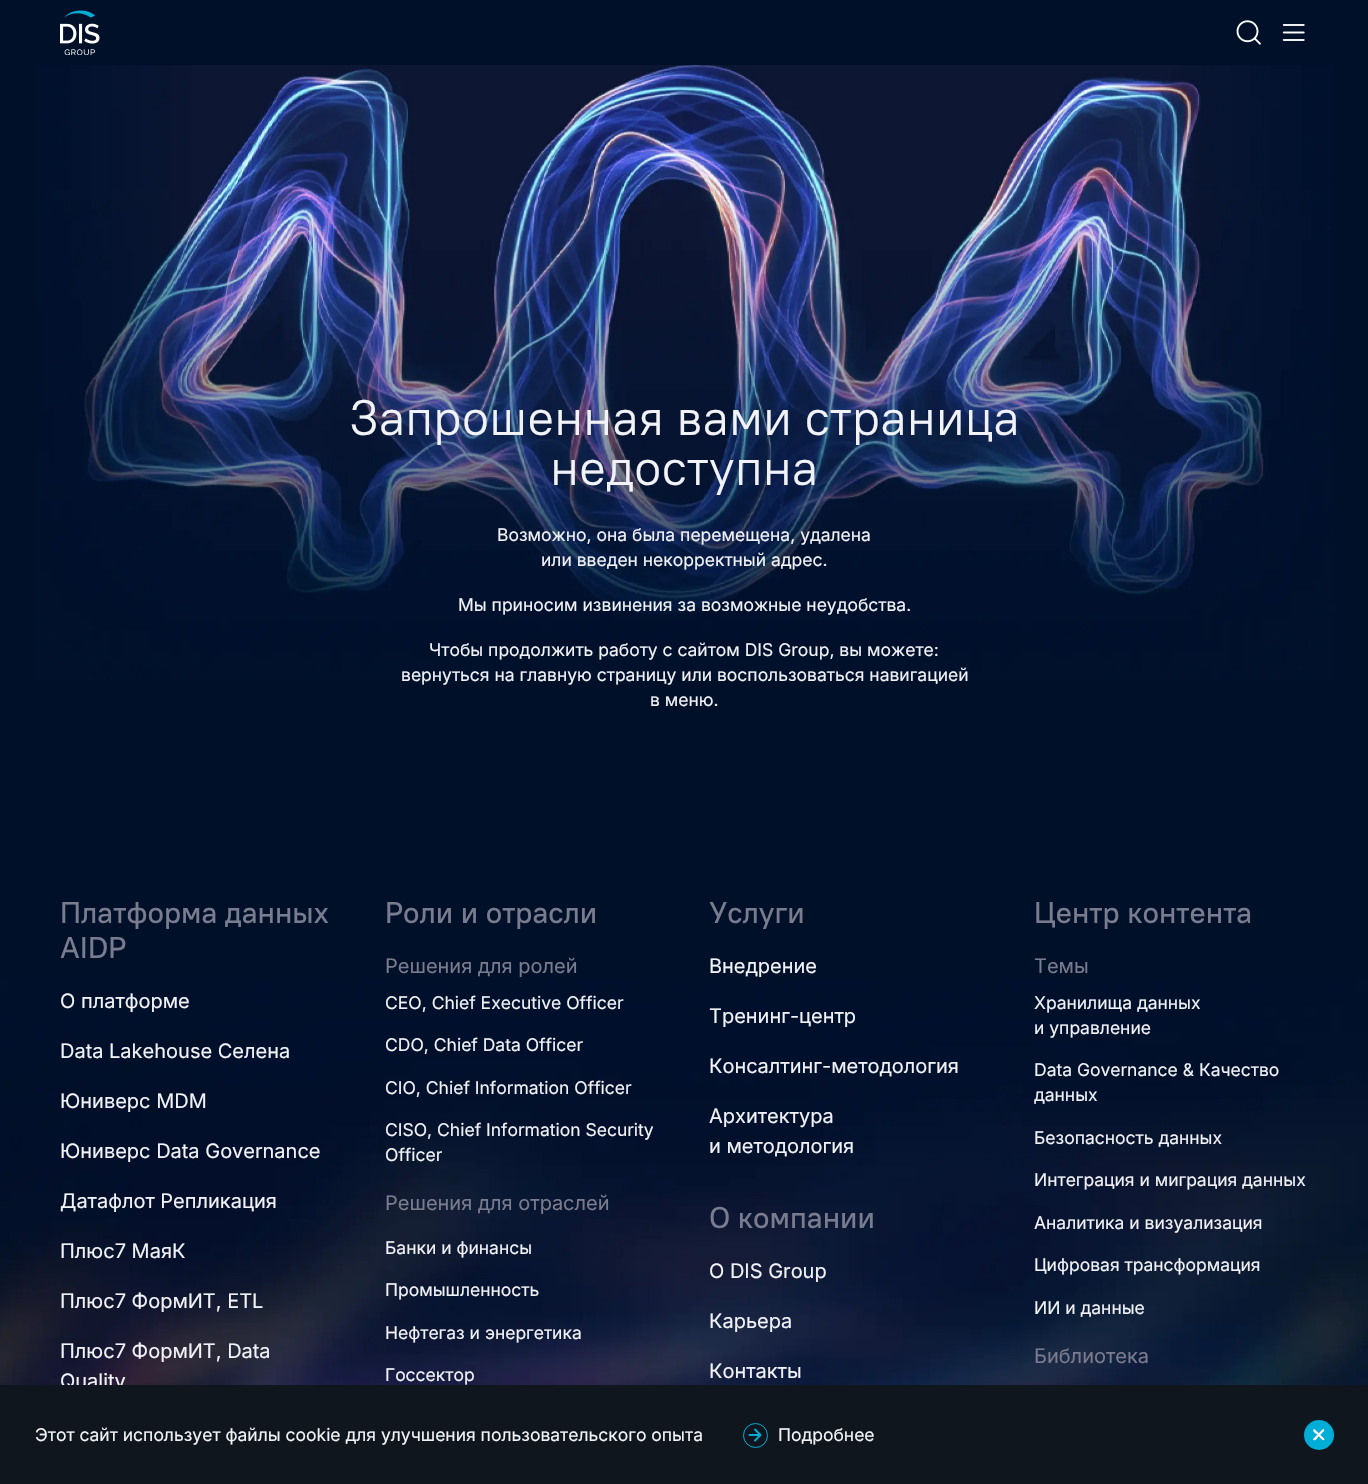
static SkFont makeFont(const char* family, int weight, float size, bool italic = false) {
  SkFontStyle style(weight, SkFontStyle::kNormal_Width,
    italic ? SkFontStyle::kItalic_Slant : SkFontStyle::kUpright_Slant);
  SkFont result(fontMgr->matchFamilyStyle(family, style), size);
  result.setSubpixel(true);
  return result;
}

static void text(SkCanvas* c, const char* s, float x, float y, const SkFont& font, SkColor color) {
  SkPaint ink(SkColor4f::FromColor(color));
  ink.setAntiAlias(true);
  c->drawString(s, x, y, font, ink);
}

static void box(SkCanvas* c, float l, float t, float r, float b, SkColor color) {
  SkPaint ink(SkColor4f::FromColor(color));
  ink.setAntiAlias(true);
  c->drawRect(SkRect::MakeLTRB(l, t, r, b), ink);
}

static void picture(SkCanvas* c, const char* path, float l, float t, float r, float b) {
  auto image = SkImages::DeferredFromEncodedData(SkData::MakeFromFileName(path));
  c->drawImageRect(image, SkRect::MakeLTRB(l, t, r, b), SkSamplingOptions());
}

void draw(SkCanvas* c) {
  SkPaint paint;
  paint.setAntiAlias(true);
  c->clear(0xff001029);
  picture(c, "img_01.png", 60, 10, 100, 55);
  picture(c, "img_02.png", 1236, 20, 1261, 45);
  picture(c, "img_03.png", 1282, 24, 1305, 41);
  picture(c, "img_04.png", 36, 65, 1333, 680);
  SkFont face1 = makeFont("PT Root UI", 400, 50);
  text(c, "Запрошенная вами страница", 349, 435, face1, 0xfff2f3f8);
  text(c, "недоступна", 550, 485, face1, 0xfff2f3f8);
  SkFont face2 = makeFont("Inter", 400, 17.5f);
  text(c, "Возможно, она была перемещена, удалена", 497, 541, face2, 0xfff2f3f8);
  text(c, "или введен некорректный адрес.", 541, 566, face2, 0xfff2f3f8);
  text(c, "Мы приносим извинения за возможные неудобства.", 458, 611, face2, 0xfff2f3f8);
  text(c, "Чтобы продолжить работу с сайтом DIS Group, вы можете:", 429, 656, face2, 0xfff2f3f8);
  text(c, "вернуться на главную страницу или воспользоваться навигацией", 401, 681, face2, 0xfff2f3f8);
  text(c, "в меню.", 650, 706, face2, 0xfff2f3f8);
  picture(c, "img_05.png", 0, 979, 1368, 1385);
  SkFont face3 = makeFont("PT Root UI", 500, 30);
  text(c, "Платформа данных", 60, 923, face3, 0xff797b8e);
  text(c, "AIDP", 60, 958, face3, 0xff797b8e);
  SkFont face4 = makeFont("Inter", 400, 20);
  text(c, "О платформе", 60, 1008, face4, 0xfff2f3f8);
  text(c, "Data Lakehouse Селена", 60, 1058, face4, 0xfff2f3f8);
  text(c, "Юниверс MDM", 60, 1108, face4, 0xfff2f3f8);
  text(c, "Юниверс Data Governance", 60, 1158, face4, 0xfff2f3f8);
  text(c, "Датафлот Репликация", 60, 1208, face4, 0xfff2f3f8);
  text(c, "Плюс7 МаяК", 60, 1258, face4, 0xfff2f3f8);
  text(c, "Плюс7 ФормИТ, ETL", 60, 1308, face4, 0xfff2f3f8);
  text(c, "Плюс7 ФормИТ, Data", 60, 1358, face4, 0xfff2f3f8);
  text(c, "Quality", 60, 1388, face4, 0xfff2f3f8);
  text(c, "Роли и отрасли", 385, 923, face3, 0xff797b8e);
  text(c, "Решения для ролей", 385, 973, face4, 0xff797b8e);
  text(c, "CEO, Chief Executive Officer", 385, 1009, face2, 0xfff2f3f8);
  text(c, "CDO, Chief Data Officer", 385, 1051, face2, 0xfff2f3f8);
  text(c, "CIO, Chief Information Officer", 385, 1094, face2, 0xfff2f3f8);
  text(c, "CISO, Chief Information Security", 385, 1136, face2, 0xfff2f3f8);
  text(c, "Officer", 385, 1161, face2, 0xfff2f3f8);
  text(c, "Решения для отраслей", 385, 1210, face4, 0xff797b8e);
  text(c, "Банки и финансы", 385, 1254, face2, 0xfff2f3f8);
  text(c, "Промышленность", 385, 1296, face2, 0xfff2f3f8);
  text(c, "Нефтегаз и энергетика", 385, 1339, face2, 0xfff2f3f8);
  text(c, "Госсектор", 385, 1381, face2, 0xfff2f3f8);
  text(c, "Услуги", 709, 923, face3, 0xff797b8e);
  text(c, "Внедрение", 709, 973, face4, 0xfff2f3f8);
  text(c, "Тренинг-центр", 709, 1023, face4, 0xfff2f3f8);
  text(c, "Консалтинг-методология", 709, 1073, face4, 0xfff2f3f8);
  text(c, "Архитектура", 709, 1123, face4, 0xfff2f3f8);
  text(c, "и методология", 709, 1153, face4, 0xfff2f3f8);
  text(c, "О компании", 709, 1228, face3, 0xff797b8e);
  text(c, "О DIS Group", 709, 1278, face4, 0xfff2f3f8);
  text(c, "Карьера", 709, 1328, face4, 0xfff2f3f8);
  text(c, "Контакты", 709, 1378, face4, 0xfff2f3f8);
  text(c, "Центр контента", 1034, 923, face3, 0xff797b8e);
  text(c, "Темы", 1034, 973, face4, 0xff797b8e);
  text(c, "Хранилища данных", 1034, 1009, face2, 0xfff2f3f8);
  text(c, "и управление", 1034, 1034, face2, 0xfff2f3f8);
  text(c, "Data Governance & Качество", 1034, 1076, face2, 0xfff2f3f8);
  text(c, "данных", 1034, 1101, face2, 0xfff2f3f8);
  text(c, "Безопасность данных", 1034, 1144, face2, 0xfff2f3f8);
  text(c, "Интеграция и миграция данных", 1034, 1186, face2, 0xfff2f3f8);
  text(c, "Аналитика и визуализация", 1034, 1229, face2, 0xfff2f3f8);
  text(c, "Цифровая трансформация", 1034, 1271, face2, 0xfff2f3f8);
  text(c, "ИИ и данные", 1034, 1314, face2, 0xfff2f3f8);
  text(c, "Библиотека", 1034, 1363, face4, 0xff797b8e);
  box(c, 0, 1385, 1368, 1484, 0xff0f161e);
  text(c, "Этот сайт использует файлы cookie для улучшения пользовательского опыта", 35, 1441, face2, 0xfff2f3f8);
  paint.setStyle(SkPaint::kStroke_Style);
  paint.setStrokeWidth(1);
  paint.setColor(0xff00add7);
  c->drawCircle(755.5f, 1435.5f, 12, paint);
  paint.setStrokeWidth(1.9f);
  paint.setStrokeCap(SkPaint::kRound_Cap);
  paint.setStrokeJoin(SkPaint::kRound_Join);
  c->drawPath(SkPathBuilder().moveTo(755, 1440.5f).lineTo(760.5f, 1435).moveTo(760.5f, 1435).lineTo(755, 1429.5f).moveTo(760.5f, 1435).lineTo(749.5f, 1435).detach(), paint);
  text(c, "Подробнее", 778, 1441, face2, 0xfff2f3f8);
  paint.setStyle(SkPaint::kFill_Style);
  c->drawCircle(1319, 1435, 15, paint);
  paint.setColor(0xffffffff);
  c->drawPath(SkPathBuilder().moveTo(1313.5f, 1438.5f).lineTo(1322.5f, 1429.5f).lineTo(1323.5f, 1429).cubicTo(1325.5f, 1430, 1323, 1432, 1322.5f, 1432.5f).lineTo(1318, 1437).cubicTo(1317.5f, 1438, 1315, 1441.5f, 1313.5f, 1440).cubicTo(1313, 1439.5f, 1313, 1439, 1313.5f, 1438.5f).close().detach(), paint);
  c->drawPath(SkPathBuilder().moveTo(1315, 1429.5f).lineTo(1324, 1438.5f).lineTo(1324.5f, 1439.5f).cubicTo(1323.5f, 1441.5f, 1321.5f, 1439, 1321, 1438.5f).lineTo(1316.5f, 1434).cubicTo(1315.5f, 1433.5f, 1312, 1431, 1313.5f, 1429.5f).cubicTo(1314, 1429, 1314.5f, 1429, 1315, 1429.5f).close().detach(), paint);
}
